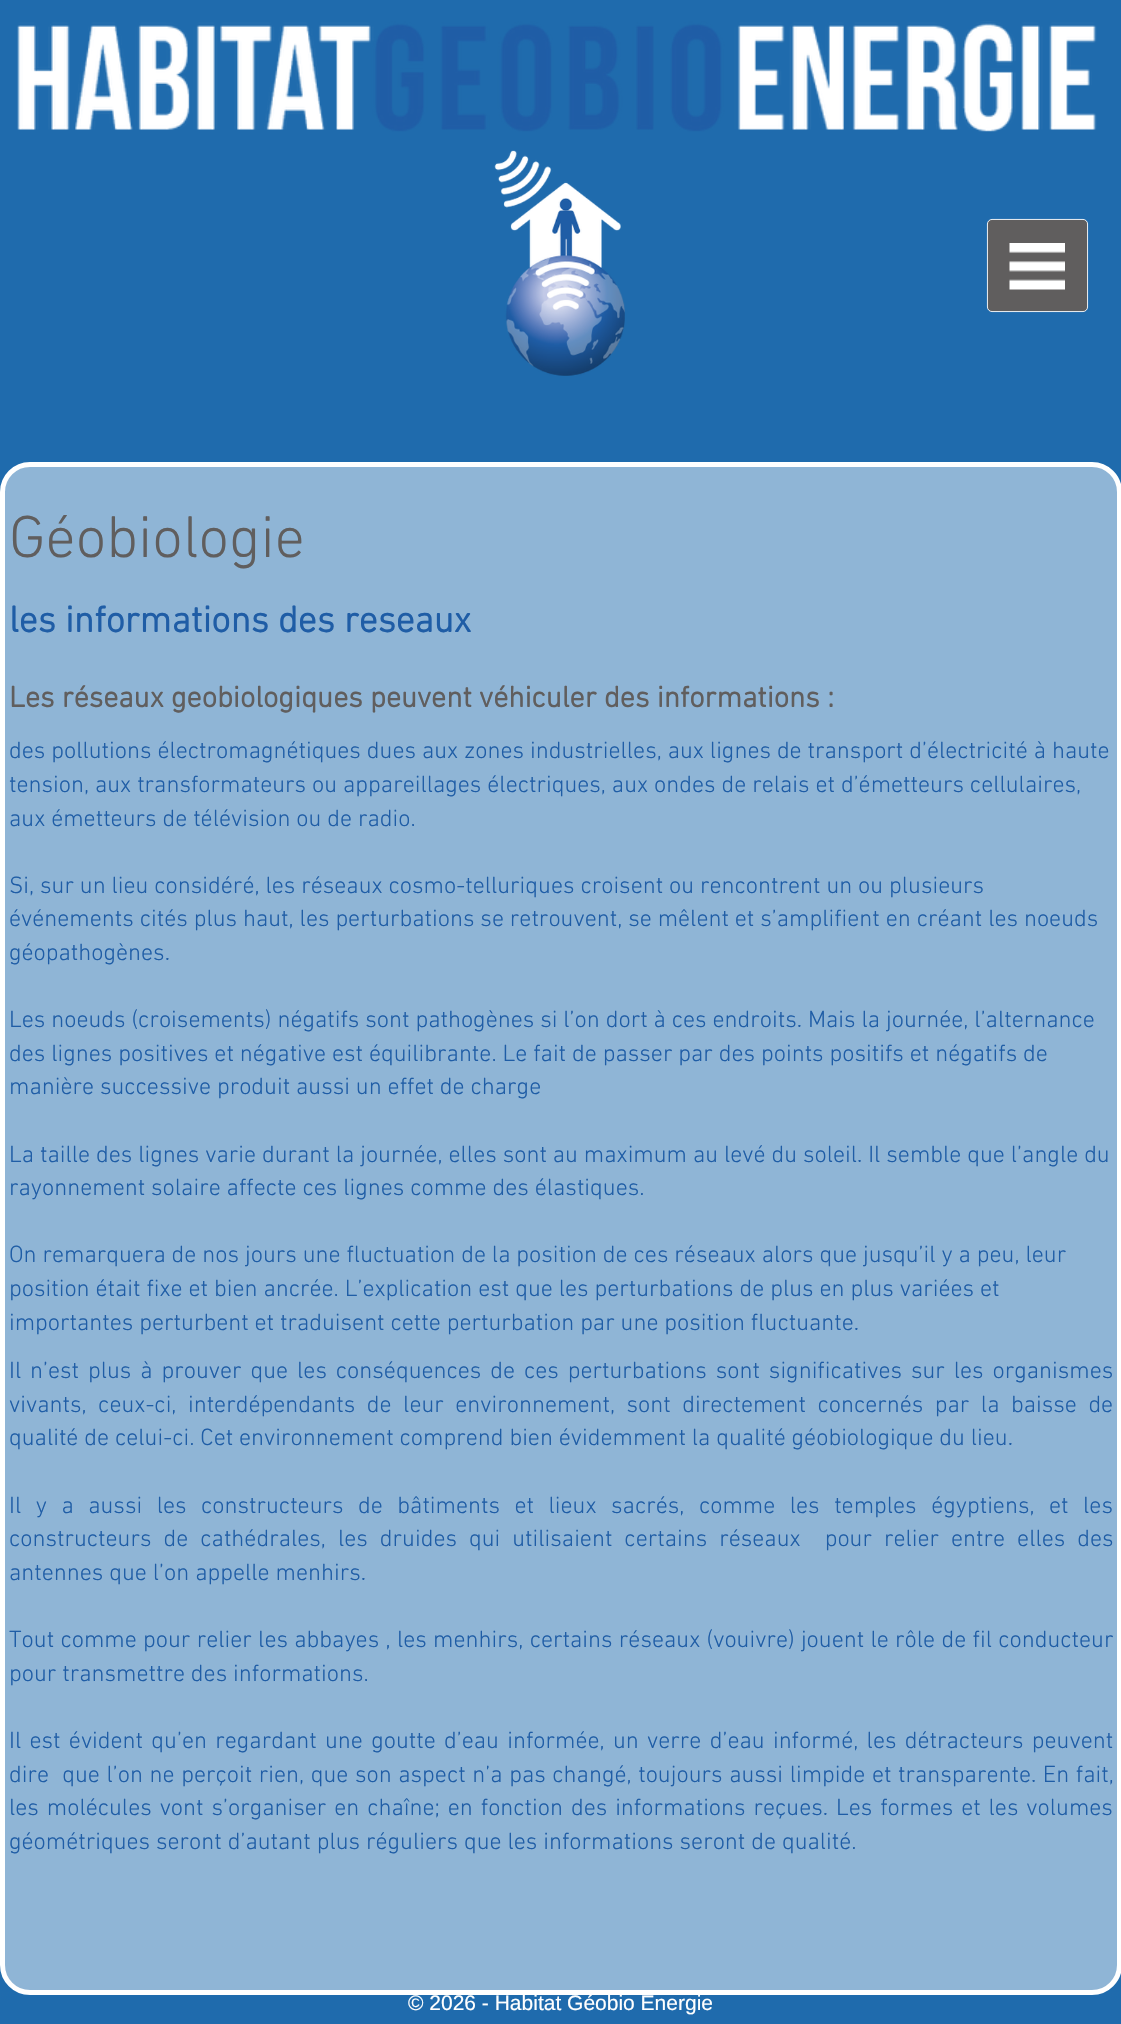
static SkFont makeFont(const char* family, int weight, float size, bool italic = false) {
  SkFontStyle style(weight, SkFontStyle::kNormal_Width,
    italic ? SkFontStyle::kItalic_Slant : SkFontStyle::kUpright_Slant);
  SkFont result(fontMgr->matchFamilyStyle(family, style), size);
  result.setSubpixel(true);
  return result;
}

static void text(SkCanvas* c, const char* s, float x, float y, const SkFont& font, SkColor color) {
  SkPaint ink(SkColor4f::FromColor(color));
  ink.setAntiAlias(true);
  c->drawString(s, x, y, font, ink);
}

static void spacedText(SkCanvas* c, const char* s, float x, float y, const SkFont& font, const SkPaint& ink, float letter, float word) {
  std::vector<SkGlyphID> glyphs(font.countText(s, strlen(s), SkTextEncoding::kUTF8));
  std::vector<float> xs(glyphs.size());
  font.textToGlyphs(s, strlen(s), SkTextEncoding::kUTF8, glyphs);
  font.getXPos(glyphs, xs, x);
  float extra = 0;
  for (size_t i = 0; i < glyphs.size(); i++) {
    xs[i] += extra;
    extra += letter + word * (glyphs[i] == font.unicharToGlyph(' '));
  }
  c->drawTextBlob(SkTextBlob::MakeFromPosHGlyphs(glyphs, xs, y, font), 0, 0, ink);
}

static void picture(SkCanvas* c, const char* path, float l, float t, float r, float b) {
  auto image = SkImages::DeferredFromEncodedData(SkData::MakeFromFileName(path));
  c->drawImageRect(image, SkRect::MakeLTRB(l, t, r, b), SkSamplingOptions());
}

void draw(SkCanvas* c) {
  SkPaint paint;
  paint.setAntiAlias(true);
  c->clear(0xff1f6bad);
  picture(c, "img_01.png", 17, 21, 1097, 132);
  picture(c, "img_02.png", 494, 150, 625, 376);
  paint.setColor(0xff605e5e);
  c->drawRoundRect(SkRect::MakeLTRB(987.45f, 219.45f, 1087.55f, 311.55f), 4.55f, 4.55f, paint);
  paint.setStyle(SkPaint::kStroke_Style);
  paint.setStrokeWidth(0.9f);
  paint.setColor(0xffffffff);
  c->drawRoundRect(SkRect::MakeLTRB(987.45f, 219.45f, 1087.55f, 311.55f), 4.55f, 4.55f, paint);
  picture(c, "img_03.png", 1009, 243, 1065, 290);
  paint.setStyle(SkPaint::kFill_Style);
  paint.setColor(0xff8fb5d6);
  c->drawRoundRect(SkRect::MakeLTRB(2.5f, 464.5f, 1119.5f, 1992.5f), 27.5f, 27.5f, paint);
  paint.setStyle(SkPaint::kStroke_Style);
  paint.setStrokeWidth(5);
  paint.setColor(0xffffffff);
  c->drawRoundRect(SkRect::MakeLTRB(2.5f, 464.5f, 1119.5f, 1992.5f), 27.5f, 27.5f, paint);
  SkFont face1 = makeFont("content", 300, 60);
  text(c, "Géobiologie", 9, 557, face1, 0xff605e5e);
  SkFont face2 = makeFont("content", 700, 37.5f);
  text(c, "les informations des reseaux", 9, 632, face2, 0xff1f5da6);
  SkFont face3 = makeFont("content", 700, 30);
  text(c, "Les réseaux geobiologiques peuvent véhiculer des informations :", 9, 707, face3, 0xff605e5e);
  SkFont face4 = makeFont("content", 300, 24);
  text(c, "des pollutions électromagnétiques dues aux zones industrielles, aux lignes de transport d’électricité à haute", 9, 758, face4, 0xff1f5da6);
  text(c, "tension, aux transformateurs ou appareillages électriques, aux ondes de relais et d’émetteurs cellulaires,", 9, 792, face4, 0xff1f5da6);
  text(c, "aux émetteurs de télévision ou de radio.", 9, 826, face4, 0xff1f5da6);
  text(c, "Si, sur un lieu considéré, les réseaux cosmo-telluriques croisent ou rencontrent un ou plusieurs", 9, 893, face4, 0xff1f5da6);
  text(c, "événements cités plus haut, les perturbations se retrouvent, se mêlent et s’amplifient en créant les noeuds", 9, 926, face4, 0xff1f5da6);
  text(c, "géopathogènes.", 9, 960, face4, 0xff1f5da6);
  text(c, "Les noeuds (croisements) négatifs sont pathogènes si l’on dort à ces endroits. Mais la journée, l’alternance", 9, 1027, face4, 0xff1f5da6);
  text(c, "des lignes positives et négative est équilibrante. Le fait de passer par des points positifs et négatifs de", 9, 1061, face4, 0xff1f5da6);
  text(c, "manière successive produit aussi un effet de charge", 9, 1094, face4, 0xff1f5da6);
  text(c, "La taille des lignes varie durant la journée, elles sont au maximum au levé du soleil. Il semble que l’angle du", 9, 1162, face4, 0xff1f5da6);
  text(c, "rayonnement solaire affecte ces lignes comme des élastiques.", 9, 1195, face4, 0xff1f5da6);
  text(c, "On remarquera de nos jours une fluctuation de la position de ces réseaux alors que jusqu’il y a peu, leur", 9, 1262, face4, 0xff1f5da6);
  text(c, "position était fixe et bien ancrée. L’explication est que les perturbations de plus en plus variées et", 9, 1296, face4, 0xff1f5da6);
  text(c, "importantes perturbent et traduisent cette perturbation par une position fluctuante.", 9, 1330, face4, 0xff1f5da6);
  paint.setStyle(SkPaint::kFill_Style);
  paint.setColor(0xff1f5da6);
  spacedText(c, "Il n’est plus à prouver que les conséquences de ces perturbations sont significatives sur les organismes", 9, 1378, face4, paint, 0, 3);
  spacedText(c, "vivants, ceux-ci, interdépendants de leur environnement, sont directement concernés par la baisse de", 9, 1412, face4, paint, 0, 5.6f);
  text(c, "qualité de celui-ci. Cet environnement comprend bien évidemment la qualité géobiologique du lieu.", 9, 1445, face4, 0xff1f5da6);
  spacedText(c, "Il y a aussi les constructeurs de bâtiments et lieux sacrés, comme les temples égyptiens, et les", 9, 1513, face4, paint, 0, 8.6f);
  spacedText(c, "constructeurs de cathédrales, les druides qui utilisaient certains réseaux  pour relier entre elles des", 9, 1546, face4, paint, 0, 6.1f);
  text(c, "antennes que l’on appelle menhirs.", 9, 1580, face4, 0xff1f5da6);
  spacedText(c, "Tout comme pour relier les abbayes , les menhirs, certains réseaux (vouivre) jouent le rôle de fil conducteur", 9, 1647, face4, paint, 0, 0.4f);
  text(c, "pour transmettre des informations.", 9, 1681, face4, 0xff1f5da6);
  spacedText(c, "Il est évident qu’en regardant une goutte d’eau informée, un verre d’eau informé, les détracteurs peuvent", 9, 1748, face4, paint, 0, 2.4f);
  spacedText(c, "dire  que l’on ne perçoit rien, que son aspect n’a pas changé, toujours aussi limpide et transparente. En fait,", 9, 1782, face4, paint, 0, 0.7f);
  spacedText(c, "les molécules vont s’organiser en chaîne; en fonction des informations reçues. Les formes et les volumes", 9, 1815, face4, paint, 0, 2);
  text(c, "géométriques seront d’autant plus réguliers que les informations seront de qualité.", 9, 1849, face4, 0xff1f5da6);
  SkFont face5 = makeFont("Liberation Sans", 400, 21);
  text(c, "© 2026 - Habitat Géobio Energie", 408, 2010, face5, 0xffffffff);
}
